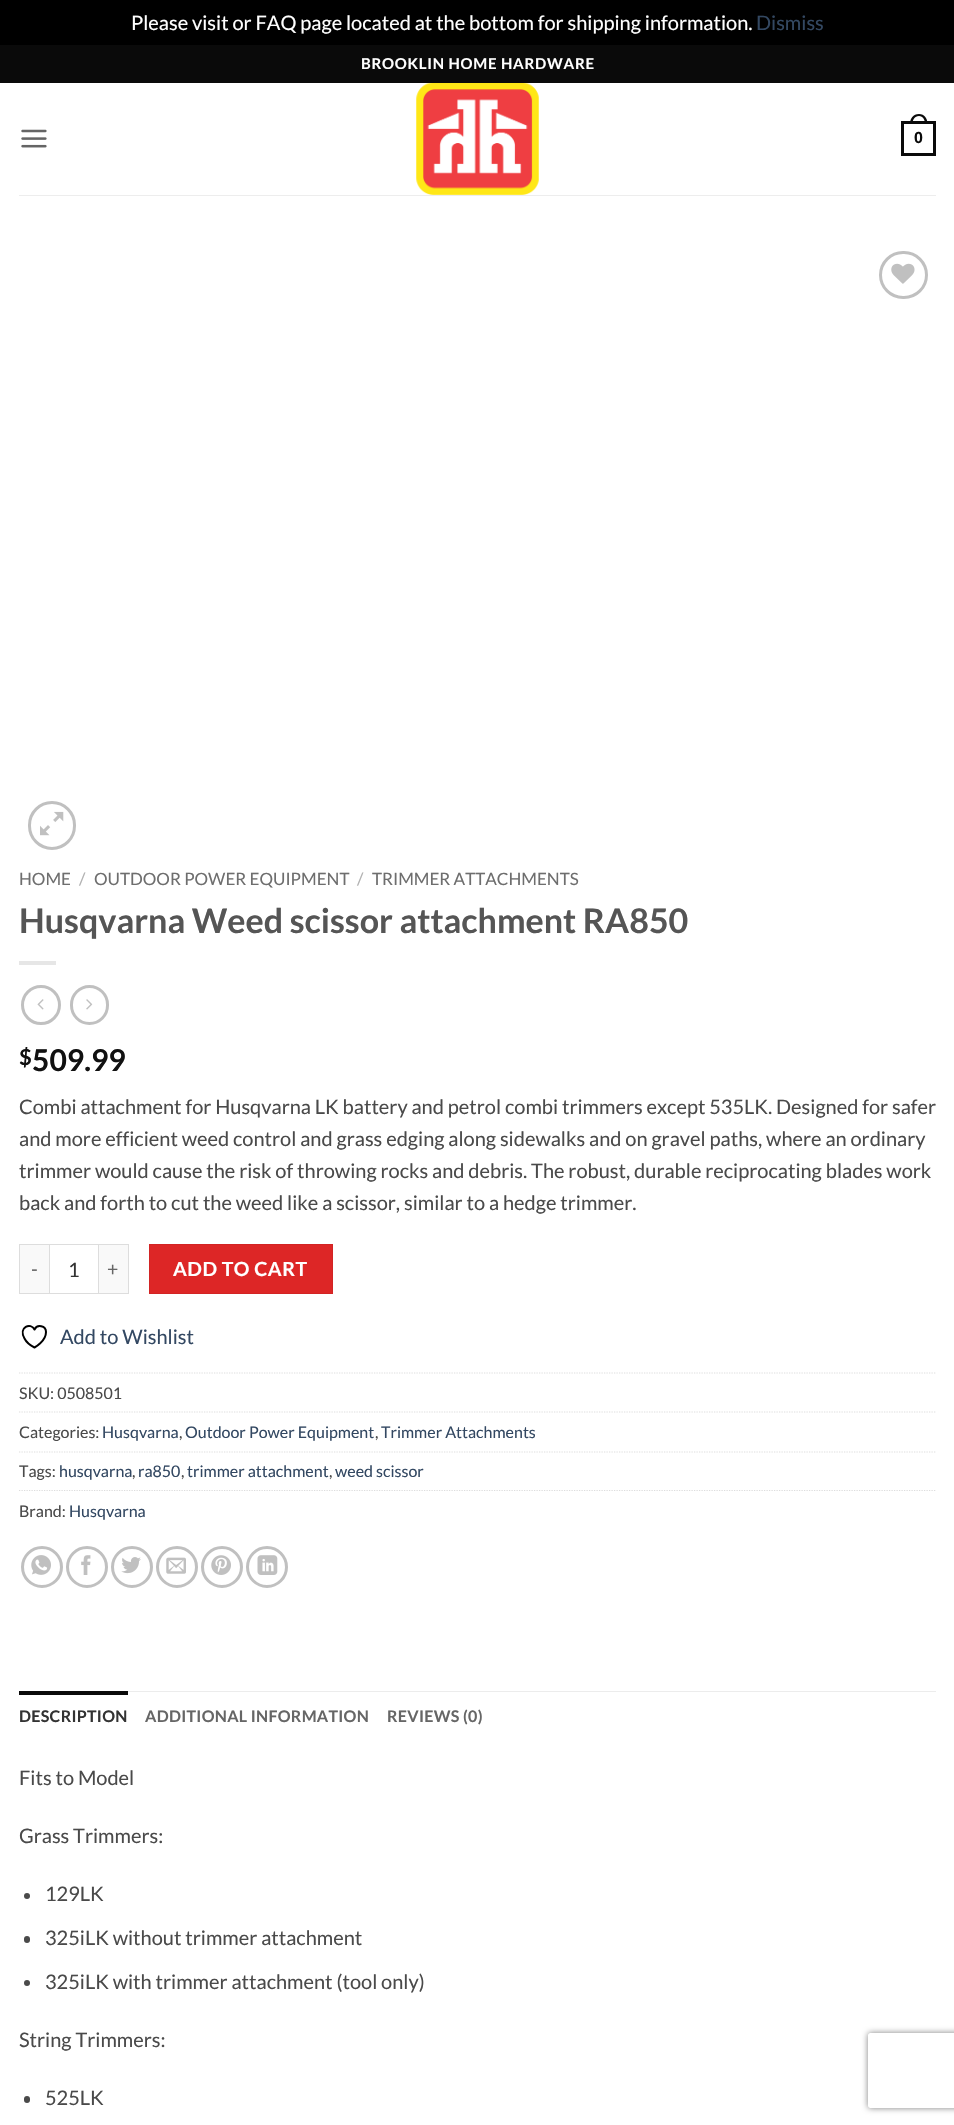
static SkFont makeFont(const char* family, int weight, float size, bool italic = false) {
  SkFontStyle style(weight, SkFontStyle::kNormal_Width,
    italic ? SkFontStyle::kItalic_Slant : SkFontStyle::kUpright_Slant);
  SkFont result(fontMgr->matchFamilyStyle(family, style), size);
  result.setSubpixel(true);
  return result;
}

static void text(SkCanvas* c, const char* s, float x, float y, const SkFont& font, SkColor color) {
  SkPaint ink(SkColor4f::FromColor(color));
  ink.setAntiAlias(true);
  c->drawString(s, x, y, font, ink);
}

static void spacedText(SkCanvas* c, const char* s, float x, float y, const SkFont& font, const SkPaint& ink, float letter, float word) {
  std::vector<SkGlyphID> glyphs(font.countText(s, strlen(s), SkTextEncoding::kUTF8));
  std::vector<float> xs(glyphs.size());
  font.textToGlyphs(s, strlen(s), SkTextEncoding::kUTF8, glyphs);
  font.getXPos(glyphs, xs, x);
  float extra = 0;
  for (size_t i = 0; i < glyphs.size(); i++) {
    xs[i] += extra;
    extra += letter + word * (glyphs[i] == font.unicharToGlyph(' '));
  }
  c->drawTextBlob(SkTextBlob::MakeFromPosHGlyphs(glyphs, xs, y, font), 0, 0, ink);
}

static void box(SkCanvas* c, float l, float t, float r, float b, SkColor color) {
  SkPaint ink(SkColor4f::FromColor(color));
  ink.setAntiAlias(true);
  c->drawRect(SkRect::MakeLTRB(l, t, r, b), ink);
}

static void roundBox(SkCanvas* c, float l, float t, float r, float b, float radius, SkColor color) {
  SkPaint ink(SkColor4f::FromColor(color));
  ink.setAntiAlias(true);
  c->drawRoundRect(SkRect::MakeLTRB(l, t, r, b), radius, radius, ink);
}

static void picture(SkCanvas* c, const char* path, float l, float t, float r, float b) {
  auto image = SkImages::DeferredFromEncodedData(SkData::MakeFromFileName(path));
  c->drawImageRect(image, SkRect::MakeLTRB(l, t, r, b), SkSamplingOptions());
}

void draw(SkCanvas* c) {
  SkPaint paint;
  paint.setAntiAlias(true);
  c->clear(0xff000000);
  SkFont face1 = makeFont("Lato", 400, 20);
  text(c, "Please visit or FAQ page located at the bottom for shipping information.", 131, 30, face1, 0xffffffff);
  text(c, "Dismiss", 756, 30, face1, 0xff334862);
  box(c, 0, 83, 954, 2125, 0xffffffff);
  box(c, 0, 45, 954, 83, 0xff0a0a0a);
  SkFont face2 = makeFont("Lato", 700, 15);
  paint.setColor(0xffffffff);
  spacedText(c, "BROOKLIN HOME HARDWARE", 361, 69, face2, paint, 0.75f, 0);
  picture(c, "img_01.png", 21, 129, 47, 148);
  picture(c, "img_02.png", 416, 83, 539, 195);
  paint.setStyle(SkPaint::kStroke_Style);
  paint.setStrokeWidth(3);
  paint.setColor(0xff0a0a0a);
  c->drawRect(SkRect::MakeLTRB(902.5f, 122.5f, 934.5f, 154.5f), paint);
  paint.setStyle(SkPaint::kFill_Style);
  c->drawPath(SkPathBuilder(SkPathFillType::kEvenOdd).moveTo(919, 114).cubicTo(924.5f, 114, 927.5f, 118.5f, 927.5f, 124).lineTo(910, 124).cubicTo(910, 118.5f, 913, 114, 919, 114).close().moveTo(919, 116).cubicTo(923, 116, 925, 120, 925, 124).lineTo(912.5f, 124).cubicTo(912.5f, 120, 914.5f, 116, 919, 116).close().detach(), paint);
  SkFont face3 = makeFont("Liberation Sans", 700, 16);
  text(c, "0", 914, 143, face3, 0xff0a0a0a);
  box(c, 19, 195, 936, 196, 0xffededed);
  paint.setStyle(SkPaint::kStroke_Style);
  paint.setColor(0xffc0c0c0);
  c->drawRoundRect(SkRect::MakeLTRB(880.5f, 252.5f, 926.5f, 297.5f), 22.5f, 22.5f, paint);
  picture(c, "img_03.png", 891, 263, 915, 284);
  c->drawRoundRect(SkRect::MakeLTRB(29.5f, 802.5f, 74.5f, 848.5f), 22.5f, 22.5f, paint);
  picture(c, "img_04.png", 40, 811, 64, 836);
  SkFont face4 = makeFont("Lato", 400, 17);
  text(c, "HOME", 19, 885, face4, 0xff6e6e6e);
  text(c, "/", 79, 885, face4, 0xffb2b2b2);
  text(c, "OUTDOOR POWER EQUIPMENT", 94, 885, face4, 0xff6e6e6e);
  text(c, "/", 357, 885, face4, 0xffb2b2b2);
  text(c, "TRIMMER ATTACHMENTS", 372, 885, face4, 0xff6e6e6e);
  SkFont face5 = makeFont("Lato", 700, 34);
  text(c, "Husqvarna Weed scissor attachment RA850", 19, 933, face5, 0xff555555);
  box(c, 19, 961, 56, 965, 0xffe6e6e6);
  c->drawCircle(41, 1005, 18.5f, paint);
  picture(c, "img_05.png", 37, 999, 44, 1010);
  c->drawRoundRect(SkRect::MakeLTRB(71.5f, 986.5f, 107.5f, 1023.5f), 18, 18, paint);
  picture(c, "img_06.png", 86, 999, 93, 1010);
  SkFont face6 = makeFont("Lato", 700, 22);
  text(c, "$", 19, 1065, face6, 0xff111111);
  SkFont face7 = makeFont("Lato", 700, 30);
  text(c, "509.99", 32, 1071, face7, 0xff111111);
  text(c, "Combi attachment for Husqvarna LK battery and petrol combi trimmers except 535LK. Designed for safer", 19, 1114, face1, 0xff4a4a4a);
  text(c, "and more efficient weed control and grass edging along sidewalks and on gravel paths, where an ordinary", 19, 1146, face1, 0xff4a4a4a);
  text(c, "trimmer would cause the risk of throwing rocks and debris. The robust, durable reciprocating blades work", 19, 1178, face1, 0xff4a4a4a);
  text(c, "back and forth to cut the weed like a scissor, similar to a hedge trimmer.", 19, 1210, face1, 0xff4a4a4a);
  box(c, 20, 1245, 49, 1293, 0xfff9f9f9);
  box(c, 19, 1244, 49, 1245, 0xffdddddd);
  box(c, 19, 1293, 49, 1294, 0xffdddddd);
  box(c, 19, 1244, 20, 1294, 0xffdddddd);
  SkFont face8 = makeFont("Lato", 400, 19.5f);
  paint.setStyle(SkPaint::kFill_Style);
  paint.setColor(0xff666666);
  spacedText(c, "-", 31, 1276, face8, paint, 0.5f, 0);
  paint.setStyle(SkPaint::kStroke_Style);
  paint.setStrokeWidth(1);
  paint.setColor(0xffdddddd);
  c->drawRect(SkRect::MakeLTRB(49.5f, 1244.5f, 98.5f, 1293.5f), paint);
  text(c, "1", 68, 1277, face1, 0xff333333);
  box(c, 99, 1245, 128, 1293, 0xfff9f9f9);
  box(c, 99, 1244, 129, 1245, 0xffdddddd);
  box(c, 128, 1244, 129, 1294, 0xffdddddd);
  box(c, 99, 1293, 129, 1294, 0xffdddddd);
  paint.setStyle(SkPaint::kFill_Style);
  paint.setColor(0xff666666);
  spacedText(c, "+", 107, 1276, face8, paint, 0.5f, 0);
  paint.setColor(0xffdd2626);
  c->drawRect(SkRect::MakeLTRB(149.5f, 1244.5f, 332.5f, 1293.5f), paint);
  paint.setStyle(SkPaint::kStroke_Style);
  paint.setColor(0xffd22424);
  c->drawRect(SkRect::MakeLTRB(149.5f, 1244.5f, 332.5f, 1293.5f), paint);
  SkFont face9 = makeFont("Lato", 700, 19.5f);
  paint.setStyle(SkPaint::kFill_Style);
  paint.setColor(0xffffffff);
  spacedText(c, "ADD TO CART", 173, 1276, face9, paint, 0.5f, 0);
  text(c, "Add to Wishlist", 60, 1344, face1, 0xff334862);
  paint.setStyle(SkPaint::kStroke_Style);
  paint.setStrokeWidth(2);
  paint.setStrokeCap(SkPaint::kRound_Cap);
  paint.setStrokeJoin(SkPaint::kRound_Join);
  paint.setColor(0xff000000);
  c->drawPath(SkPathBuilder().moveTo(46, 1332).cubicTo(46, 1325.5f, 37, 1324, 34.5f, 1329.5f).cubicTo(31, 1322, 18, 1327, 24.5f, 1338.5f).cubicTo(26.5f, 1342.5f, 30.5f, 1345.5f, 34.5f, 1347.5f).cubicTo(34.5f, 1347.5f, 46, 1341.5f, 46, 1332).close().detach(), paint);
  paint.setStrokeWidth(1.2f);
  paint.setStrokeCap(SkPaint::kButt_Cap);
  paint.setStrokeJoin(SkPaint::kMiter_Join);
  paint.setColor(0xffdddddd);
  paint.setPathEffect(SkDashPathEffect::Make({{1.25f, 1.25f}}, 0));
  c->drawPath(SkPathBuilder().moveTo(19, 1373).lineTo(936, 1373).detach(), paint);
  paint.setPathEffect(nullptr);
  SkFont face10 = makeFont("Lato", 400, 16);
  text(c, "SKU: 0508501", 19, 1399, face10, 0xff4a4a4a);
  paint.setPathEffect(SkDashPathEffect::Make({{1.25f, 1.25f}}, 0));
  c->drawPath(SkPathBuilder().moveTo(19, 1412).lineTo(936, 1412).detach(), paint);
  paint.setPathEffect(nullptr);
  text(c, "Categories:", 19, 1438, face10, 0xff4a4a4a);
  text(c, "Husqvarna", 102, 1438, face10, 0xff334862);
  text(c, ",", 179, 1438, face10, 0xff4a4a4a);
  text(c, "Outdoor Power Equipment", 185, 1438, face10, 0xff334862);
  text(c, ",", 375, 1438, face10, 0xff4a4a4a);
  text(c, "Trimmer Attachments", 381, 1438, face10, 0xff334862);
  paint.setPathEffect(SkDashPathEffect::Make({{1.25f, 1.25f}}, 0));
  c->drawPath(SkPathBuilder().moveTo(19, 1452).lineTo(936, 1452).detach(), paint);
  paint.setPathEffect(nullptr);
  text(c, "Tags:", 19, 1477, face10, 0xff4a4a4a);
  text(c, "husqvarna", 59, 1477, face10, 0xff334862);
  text(c, ",", 132, 1477, face10, 0xff4a4a4a);
  text(c, "ra850", 138, 1477, face10, 0xff334862);
  text(c, ",", 181, 1477, face10, 0xff4a4a4a);
  text(c, "trimmer attachment", 187, 1477, face10, 0xff334862);
  text(c, ",", 329, 1477, face10, 0xff4a4a4a);
  text(c, "weed scissor", 335, 1477, face10, 0xff334862);
  paint.setPathEffect(SkDashPathEffect::Make({{1.25f, 1.25f}}, 0));
  c->drawPath(SkPathBuilder().moveTo(19, 1490.5f).lineTo(936, 1490.5f).detach(), paint);
  paint.setPathEffect(nullptr);
  text(c, "Brand:", 19, 1517, face10, 0xff4a4a4a);
  text(c, "Husqvarna", 69, 1517, face10, 0xff334862);
  paint.setStrokeWidth(3);
  paint.setColor(0xffc0c0c0);
  c->drawCircle(42, 1567, 19.5f, paint);
  picture(c, "img_07.png", 31, 1555, 51, 1575);
  c->drawCircle(87, 1567, 19.5f, paint);
  picture(c, "img_08.png", 81, 1555, 91, 1575);
  c->drawCircle(132, 1567, 19.5f, paint);
  picture(c, "img_09.png", 121, 1557, 141, 1574);
  c->drawCircle(177, 1567, 19.5f, paint);
  picture(c, "img_10.png", 166, 1557, 186, 1574);
  c->drawCircle(222, 1567, 19.5f, paint);
  picture(c, "img_11.png", 211, 1555, 231, 1575);
  c->drawCircle(267, 1567, 19.5f, paint);
  picture(c, "img_12.png", 257, 1555, 278, 1575);
  box(c, 128, 1691, 936, 1692, 0xffececec);
  box(c, 19, 1691, 128, 1695, 0xff0a0a0a);
  SkFont face11 = makeFont("Lato", 700, 16);
  paint.setStyle(SkPaint::kFill_Style);
  paint.setColor(0xff333333);
  spacedText(c, "DESCRIPTION", 19, 1722, face11, paint, 0.3f, 0);
  paint.setColor(0xff666666);
  spacedText(c, "ADDITIONAL INFORMATION", 145, 1722, face11, paint, 0.3f, 0);
  spacedText(c, "REVIEWS (0)", 387, 1722, face11, paint, 0.3f, 0);
  text(c, "Fits to Model", 19, 1785, face1, 0xff4a4a4a);
  text(c, "Grass Trimmers:", 19, 1843, face1, 0xff4a4a4a);
  paint.setColor(0xff4a4a4a);
  c->drawCircle(27, 1896, 3, paint);
  text(c, "129LK", 45, 1901, face1, 0xff4a4a4a);
  roundBox(c, 24, 1936, 30, 1943, 3, 0xff4a4a4a);
  text(c, "325iLK without trimmer attachment", 45, 1945, face1, 0xff4a4a4a);
  c->drawCircle(27, 1983, 3, paint);
  text(c, "325iLK with trimmer attachment (tool only)", 45, 1989, face1, 0xff4a4a4a);
  text(c, "String Trimmers:", 19, 2047, face1, 0xff4a4a4a);
  roundBox(c, 24, 2096, 30, 2103, 3, 0xff4a4a4a);
  text(c, "525LK", 45, 2105, face1, 0xff4a4a4a);
  c->save();
  c->clipPath(SkPathBuilder(SkPathFillType::kEvenOdd).moveTo(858, 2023).lineTo(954, 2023).lineTo(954, 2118).lineTo(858, 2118).close().moveTo(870.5f, 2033).lineTo(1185.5f, 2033).cubicTo(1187, 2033, 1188, 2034, 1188, 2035.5f).lineTo(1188, 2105.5f).cubicTo(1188, 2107, 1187, 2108, 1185.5f, 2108).lineTo(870.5f, 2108).cubicTo(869, 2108, 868, 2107, 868, 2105.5f).lineTo(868, 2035.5f).cubicTo(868, 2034, 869, 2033, 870.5f, 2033).close().detach(), true);
  paint.setColor(0xff808080);
  paint.setMaskFilter(SkMaskFilter::MakeBlur(kNormal_SkBlurStyle, 3));
  c->drawRoundRect(SkRect::MakeLTRB(868, 2033, 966, 2108), 2.5f, 2.5f, paint);
  paint.setMaskFilter(nullptr);
  c->restore();
}
